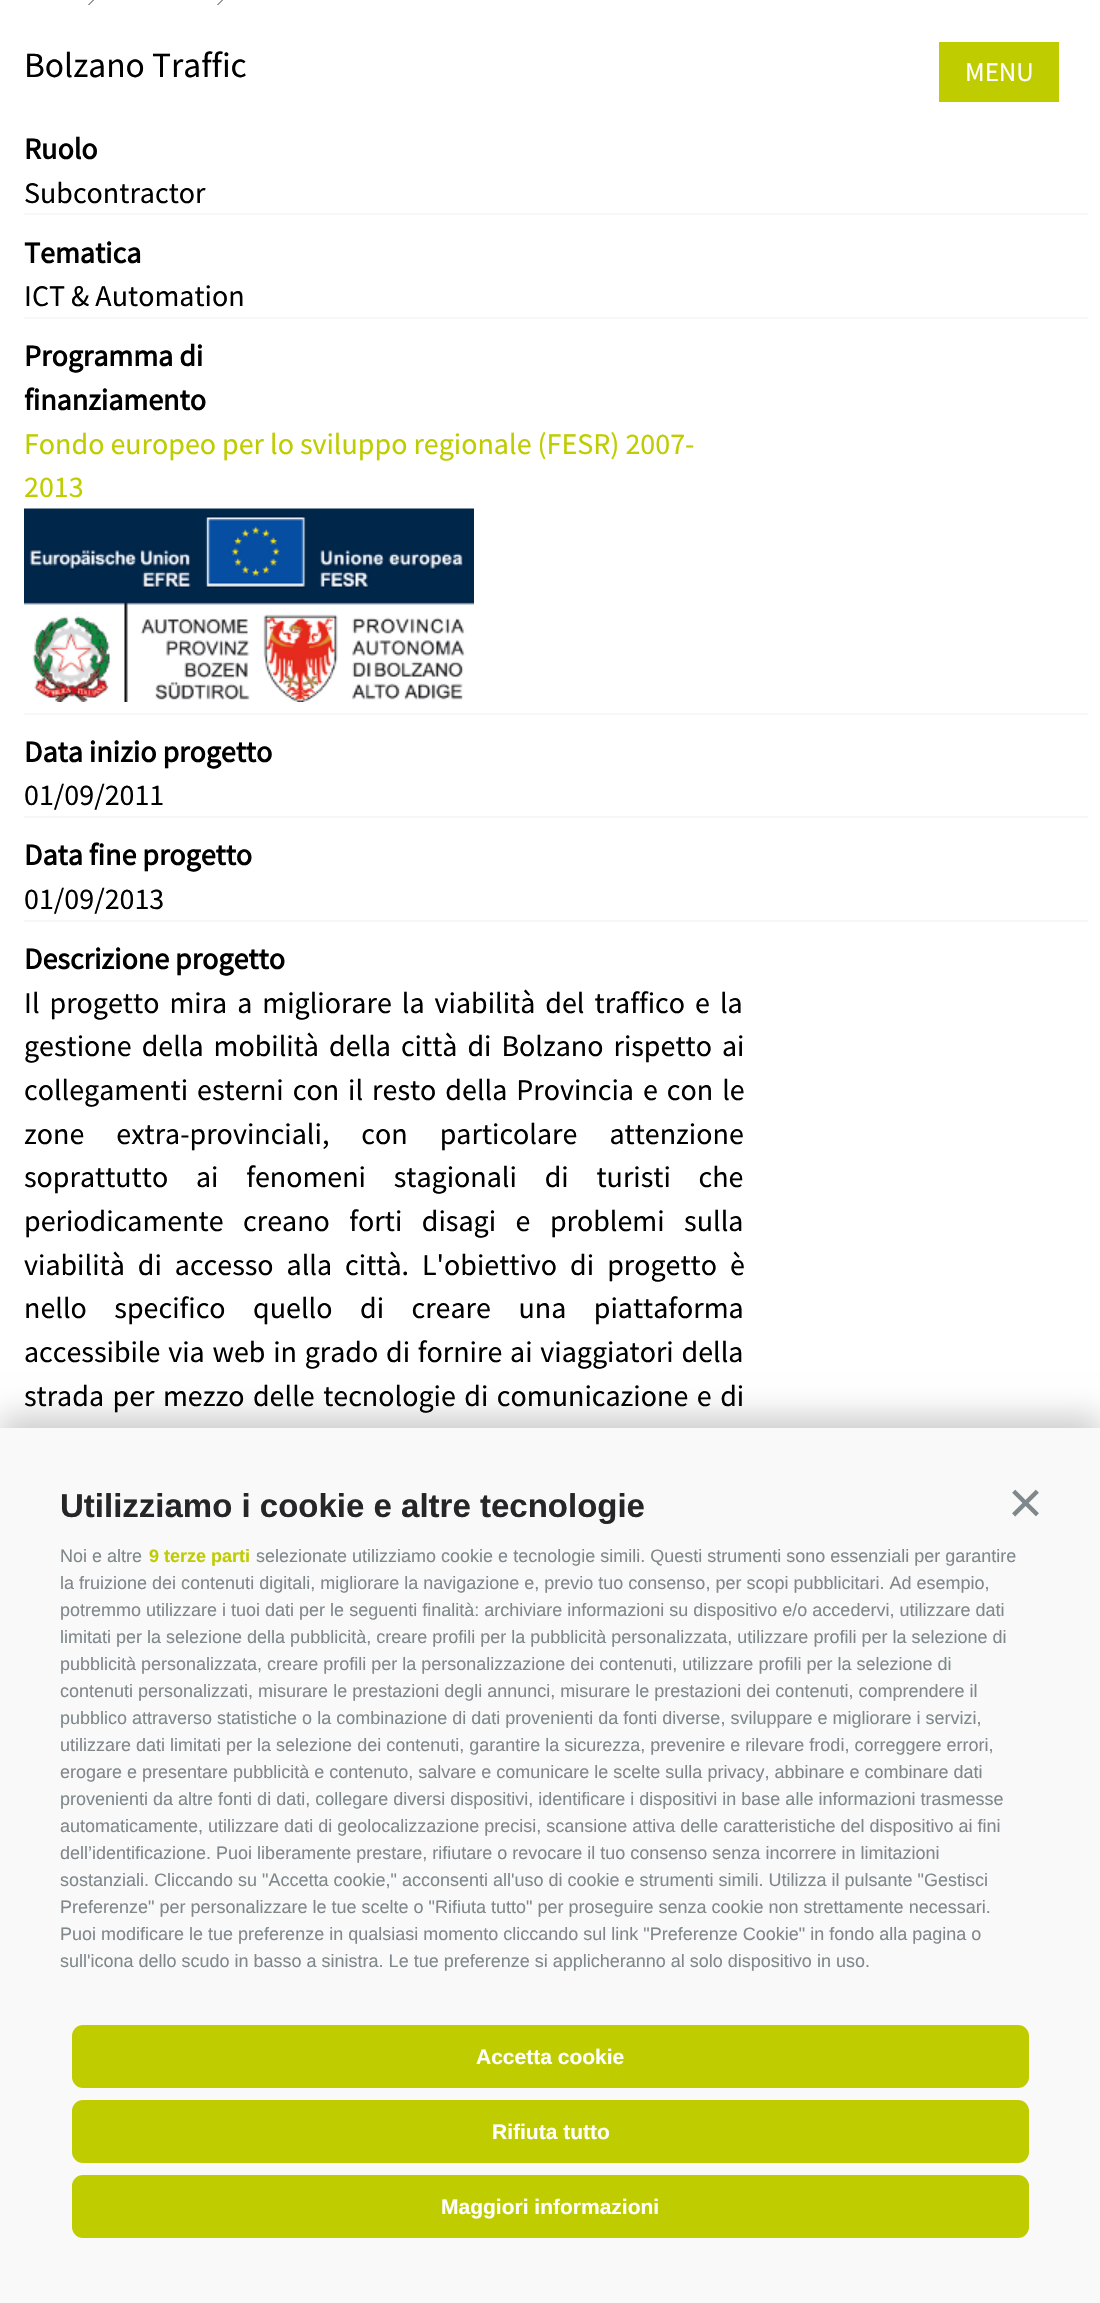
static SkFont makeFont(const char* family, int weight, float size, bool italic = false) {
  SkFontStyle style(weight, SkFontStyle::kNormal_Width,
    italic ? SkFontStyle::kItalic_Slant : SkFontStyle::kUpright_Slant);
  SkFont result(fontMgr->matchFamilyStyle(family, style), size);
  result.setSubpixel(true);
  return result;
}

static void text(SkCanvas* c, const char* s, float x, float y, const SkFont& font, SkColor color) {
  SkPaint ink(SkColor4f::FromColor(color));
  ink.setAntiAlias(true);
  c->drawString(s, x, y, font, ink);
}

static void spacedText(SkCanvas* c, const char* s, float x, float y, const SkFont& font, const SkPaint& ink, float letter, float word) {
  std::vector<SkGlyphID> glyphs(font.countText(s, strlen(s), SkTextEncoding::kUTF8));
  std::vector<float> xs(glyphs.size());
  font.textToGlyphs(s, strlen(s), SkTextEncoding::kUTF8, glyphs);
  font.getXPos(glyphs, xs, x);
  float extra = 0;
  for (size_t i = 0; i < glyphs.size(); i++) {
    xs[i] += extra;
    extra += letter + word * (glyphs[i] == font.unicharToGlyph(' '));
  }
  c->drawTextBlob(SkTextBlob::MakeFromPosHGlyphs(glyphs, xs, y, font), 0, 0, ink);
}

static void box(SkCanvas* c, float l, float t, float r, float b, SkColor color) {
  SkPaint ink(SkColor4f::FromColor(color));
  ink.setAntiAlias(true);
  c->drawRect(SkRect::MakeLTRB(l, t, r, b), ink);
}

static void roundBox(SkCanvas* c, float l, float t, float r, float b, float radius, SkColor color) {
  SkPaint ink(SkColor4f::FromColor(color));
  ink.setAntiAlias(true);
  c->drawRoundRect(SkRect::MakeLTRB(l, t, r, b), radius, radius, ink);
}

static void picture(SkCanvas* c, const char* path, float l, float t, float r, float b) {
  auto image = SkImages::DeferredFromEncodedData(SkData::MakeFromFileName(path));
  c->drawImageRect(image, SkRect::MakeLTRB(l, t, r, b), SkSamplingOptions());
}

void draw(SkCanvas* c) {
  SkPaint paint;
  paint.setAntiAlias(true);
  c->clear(0xffffffff);
  paint.setStyle(SkPaint::kStroke_Style);
  paint.setStrokeWidth(0.8f);
  paint.setColor(0xff000000);
  c->drawPath(SkPathBuilder().moveTo(88.5f, 5).lineTo(96.5f, -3).lineTo(88.5f, -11).detach(), paint);
  c->drawPath(SkPathBuilder().moveTo(217.5f, 5).lineTo(225.5f, -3).lineTo(217.5f, -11).detach(), paint);
  SkFont face1 = makeFont("Source Sans Pro", 400, 35.5f);
  text(c, "Bolzano Traffic", 24, 77, face1, 0xff000000);
  box(c, 24, 213, 1088, 215, 0xfff7f7f7);
  SkFont face2 = makeFont("Source Sans Pro", 700, 30);
  text(c, "Ruolo", 24, 159, face2, 0xff000000);
  SkFont face3 = makeFont("Source Sans Pro", 400, 30);
  text(c, "Subcontractor", 24, 203, face3, 0xff000000);
  box(c, 24, 317, 1088, 319, 0xfff7f7f7);
  text(c, "Tematica", 24, 263, face2, 0xff000000);
  text(c, "ICT & Automation", 24, 306, face3, 0xff000000);
  box(c, 24, 713, 1088, 715, 0xfff7f7f7);
  text(c, "Programma di", 24, 366, face2, 0xff000000);
  text(c, "finanziamento", 24, 410, face2, 0xff000000);
  text(c, "Fondo europeo per lo sviluppo regionale (FESR) 2007-", 24, 454, face3, 0xffbfcc00);
  text(c, "2013", 24, 497, face3, 0xffbfcc00);
  picture(c, "img_01.png", 24, 508, 474, 702);
  box(c, 24, 816, 1088, 818, 0xfff7f7f7);
  text(c, "Data inizio progetto", 24, 762, face2, 0xff000000);
  text(c, "01/09/2011", 24, 805, face3, 0xff000000);
  box(c, 24, 920, 1088, 922, 0xfff7f7f7);
  text(c, "Data fine progetto", 24, 865, face2, 0xff000000);
  text(c, "01/09/2013", 24, 909, face3, 0xff000000);
  text(c, "Descrizione progetto", 24, 969, face2, 0xff000000);
  paint.setStyle(SkPaint::kFill_Style);
  spacedText(c, "Il progetto mira a migliorare la viabilità del traffico e la", 24, 1013, face3, paint, 0, 4);
  spacedText(c, "gestione della mobilità della città di Bolzano rispetto ai", 24, 1056, face3, paint, 0, 4);
  spacedText(c, "collegamenti esterni con il resto della Provincia e con le", 24, 1100, face3, paint, 0, 3);
  spacedText(c, "zone extra-provinciali, con particolare attenzione", 24, 1144, face3, paint, 0, 26);
  spacedText(c, "soprattutto ai fenomeni stagionali di turisti che", 24, 1187, face3, paint, 0, 21.75f);
  spacedText(c, "periodicamente creano forti disagi e problemi sulla", 24, 1231, face3, paint, 0, 13.5f);
  spacedText(c, "viabilità di accesso alla città. L'obiettivo di progetto è", 24, 1275, face3, paint, 0, 7);
  spacedText(c, "nello specifico quello di creare una piattaforma", 24, 1318, face3, paint, 0, 21.5f);
  spacedText(c, "accessibile via web in grado di fornire ai viaggiatori della", 24, 1362, face3, paint, 0, 1.75f);
  spacedText(c, "strada per mezzo delle tecnologie di comunicazione e di", 24, 1406, face3, paint, 0, 2.5f);
  box(c, 939, 42, 1059, 102, 0xffbfcc00);
  SkFont face4 = makeFont("Source Sans Pro", 400, 27);
  text(c, "MENU", 965, 81, face4, 0xffffffff);
  paint.setColor(0x33000000);
  paint.setMaskFilter(SkMaskFilter::MakeBlur(kNormal_SkBlurStyle, 15));
  c->drawRect(SkRect::MakeLTRB(0, 1416, 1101, 2292), paint);
  paint.setMaskFilter(nullptr);
  box(c, 0, 1428, 1100, 2303, 0xfff9f9f9);
  SkFont face5 = makeFont("Liberation Sans", 700, 33);
  text(c, "Utilizziamo i cookie e altre tecnologie", 60, 1517, face5, 0xff262628);
  SkFont face6 = makeFont("Liberation Sans", 400, 60);
  text(c, "×", 1008, 1523, face6, 0xff80888c);
  SkFont face7 = makeFont("Liberation Sans", 400, 18);
  text(c, "Noi e altre", 60, 1562, face7, 0xff80888c);
  SkFont face8 = makeFont("Liberation Sans", 700, 18);
  text(c, "9 terze parti", 149, 1562, face8, 0xffbfcc00);
  text(c, "selezionate utilizziamo cookie e tecnologie simili. Questi strumenti sono essenziali per garantire", 256, 1562, face7, 0xff80888c);
  text(c, "la fruizione dei contenuti digitali, migliorare la navigazione e, previo tuo consenso, per scopi pubblicitari. Ad esempio,", 60, 1589, face7, 0xff80888c);
  text(c, "potremmo utilizzare i tuoi dati per le seguenti finalità: archiviare informazioni su dispositivo e/o accedervi, utilizzare dati", 60, 1616, face7, 0xff80888c);
  text(c, "limitati per la selezione della pubblicità, creare profili per la pubblicità personalizzata, utilizzare profili per la selezione di", 60, 1643, face7, 0xff80888c);
  text(c, "pubblicità personalizzata, creare profili per la personalizzazione dei contenuti, utilizzare profili per la selezione di", 60, 1670, face7, 0xff80888c);
  text(c, "contenuti personalizzati, misurare le prestazioni degli annunci, misurare le prestazioni dei contenuti, comprendere il", 60, 1697, face7, 0xff80888c);
  text(c, "pubblico attraverso statistiche o la combinazione di dati provenienti da fonti diverse, sviluppare e migliorare i servizi,", 60, 1724, face7, 0xff80888c);
  text(c, "utilizzare dati limitati per la selezione dei contenuti, garantire la sicurezza, prevenire e rilevare frodi, correggere errori,", 60, 1751, face7, 0xff80888c);
  text(c, "erogare e presentare pubblicità e contenuto, salvare e comunicare le scelte sulla privacy, abbinare e combinare dati", 60, 1778, face7, 0xff80888c);
  text(c, "provenienti da altre fonti di dati, collegare diversi dispositivi, identificare i dispositivi in base alle informazioni trasmesse", 60, 1805, face7, 0xff80888c);
  text(c, "automaticamente, utilizzare dati di geolocalizzazione precisi, scansione attiva delle caratteristiche del dispositivo ai fini", 60, 1832, face7, 0xff80888c);
  text(c, "dell’identificazione. Puoi liberamente prestare, rifiutare o revocare il tuo consenso senza incorrere in limitazioni", 60, 1859, face7, 0xff80888c);
  text(c, "sostanziali. Cliccando su \"Accetta cookie,\" acconsenti all'uso di cookie e strumenti simili. Utilizza il pulsante \"Gestisci", 60, 1886, face7, 0xff80888c);
  text(c, "Preferenze\" per personalizzare le tue scelte o \"Rifiuta tutto\" per proseguire senza cookie non strettamente necessari.", 60, 1913, face7, 0xff80888c);
  text(c, "Puoi modificare le tue preferenze in qualsiasi momento cliccando sul link \"Preferenze Cookie\" in fondo alla pagina o", 60, 1940, face7, 0xff80888c);
  text(c, "sull'icona dello scudo in basso a sinistra. Le tue preferenze si applicheranno al solo dispositivo in uso.", 60, 1967, face7, 0xff80888c);
  roundBox(c, 72, 2025, 1029, 2088, 11, 0xffbfcc00);
  SkFont face9 = makeFont("Liberation Sans", 700, 21);
  text(c, "Accetta cookie", 476, 2064, face9, 0xffffffff);
  roundBox(c, 72, 2100, 1029, 2163, 11, 0xffbfcc00);
  text(c, "Rifiuta tutto", 492, 2139, face9, 0xffffffff);
  roundBox(c, 72, 2175, 1029, 2238, 11, 0xffbfcc00);
  text(c, "Maggiori informazioni", 441, 2214, face9, 0xffffffff);
}
